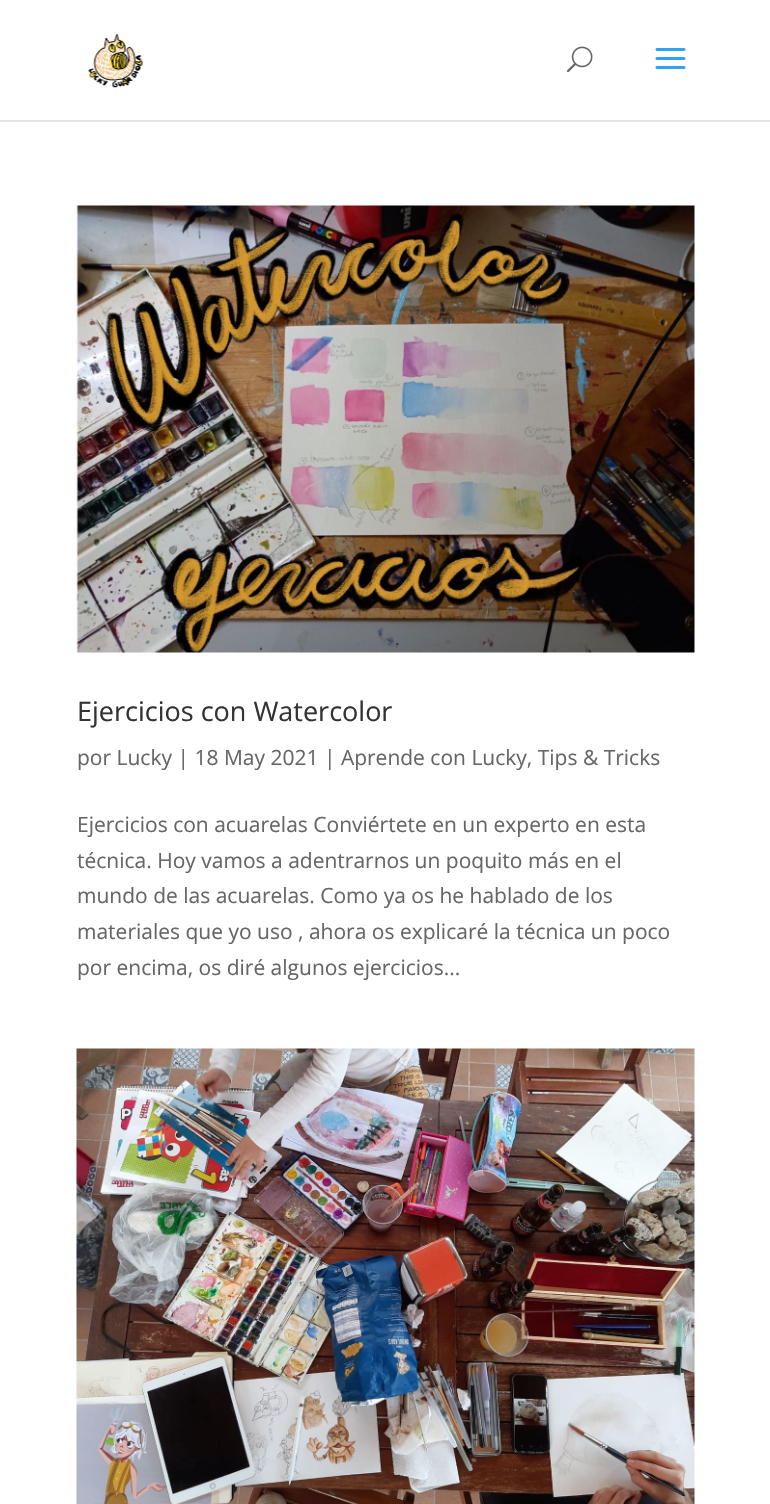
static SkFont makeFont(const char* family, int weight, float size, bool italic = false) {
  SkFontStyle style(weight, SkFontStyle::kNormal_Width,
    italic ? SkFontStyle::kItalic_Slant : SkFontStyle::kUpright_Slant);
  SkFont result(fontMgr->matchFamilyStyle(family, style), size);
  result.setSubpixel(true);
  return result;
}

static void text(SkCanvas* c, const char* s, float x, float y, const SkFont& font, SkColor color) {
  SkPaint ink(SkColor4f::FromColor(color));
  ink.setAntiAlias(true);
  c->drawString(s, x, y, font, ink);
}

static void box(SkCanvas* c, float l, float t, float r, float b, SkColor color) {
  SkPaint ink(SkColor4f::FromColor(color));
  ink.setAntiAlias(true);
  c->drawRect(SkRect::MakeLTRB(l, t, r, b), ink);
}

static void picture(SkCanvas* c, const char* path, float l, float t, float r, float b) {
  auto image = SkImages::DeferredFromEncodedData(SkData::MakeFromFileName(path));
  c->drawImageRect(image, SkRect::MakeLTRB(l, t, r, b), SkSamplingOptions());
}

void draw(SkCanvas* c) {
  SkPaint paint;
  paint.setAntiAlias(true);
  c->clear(0xffffffff);
  box(c, 0, 120, 770, 122, 0xffe6e6e6);
  picture(c, "img_01.png", 88, 34, 144, 88);
  picture(c, "img_02.png", 566, 46, 593, 73);
  picture(c, "img_03.png", 655, 48, 686, 69);
  picture(c, "img_04.png", 76, 205, 695, 653);
  SkFont face1 = makeFont("Open Sans", 400, 27);
  text(c, "Ejercicios con Watercolor", 77, 721, face1, 0xff333333);
  SkFont face2 = makeFont("Open Sans", 400, 21);
  text(c, "por Lucky | 18 May 2021 | Aprende con Lucky, Tips & Tricks", 77, 765, face2, 0xff666666);
  text(c, "Ejercicios con acuarelas Conviértete en un experto en esta", 77, 832, face2, 0xff666666);
  text(c, "técnica. Hoy vamos a adentrarnos un poquito más en el", 77, 868, face2, 0xff666666);
  text(c, "mundo de las acuarelas. Como ya os he hablado de los", 77, 903, face2, 0xff666666);
  text(c, "materiales que yo uso , ahora os explicaré la técnica un poco", 77, 939, face2, 0xff666666);
  text(c, "por encima, os diré algunos ejercicios...", 77, 975, face2, 0xff666666);
  picture(c, "img_05.png", 76, 1048, 695, 1504);
}
